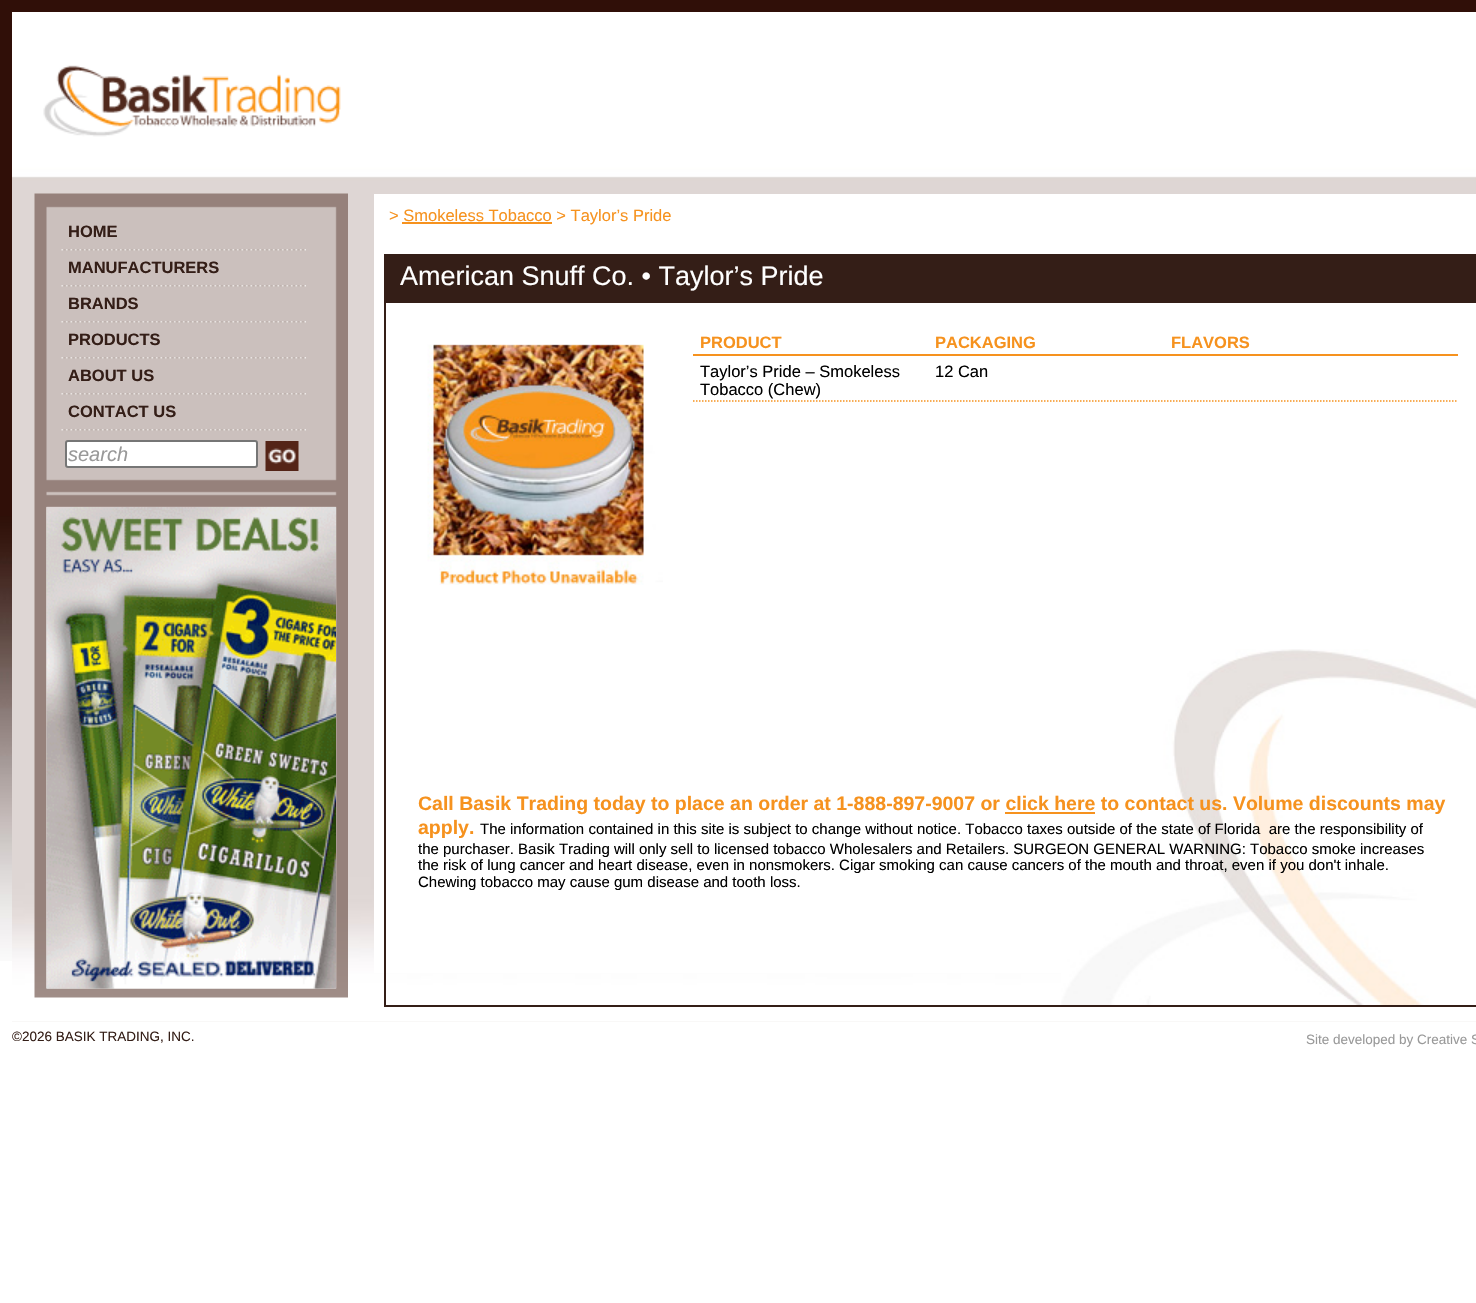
static SkFont makeFont(const char* family, int weight, float size, bool italic = false) {
  SkFontStyle style(weight, SkFontStyle::kNormal_Width,
    italic ? SkFontStyle::kItalic_Slant : SkFontStyle::kUpright_Slant);
  SkFont result(fontMgr->matchFamilyStyle(family, style), size);
  result.setSubpixel(true);
  return result;
}

static void text(SkCanvas* c, const char* s, float x, float y, const SkFont& font, SkColor color) {
  SkPaint ink(SkColor4f::FromColor(color));
  ink.setAntiAlias(true);
  c->drawString(s, x, y, font, ink);
}

static void box(SkCanvas* c, float l, float t, float r, float b, SkColor color) {
  SkPaint ink(SkColor4f::FromColor(color));
  ink.setAntiAlias(true);
  c->drawRect(SkRect::MakeLTRB(l, t, r, b), ink);
}

static void picture(SkCanvas* c, const char* path, float l, float t, float r, float b) {
  auto image = SkImages::DeferredFromEncodedData(SkData::MakeFromFileName(path));
  c->drawImageRect(image, SkRect::MakeLTRB(l, t, r, b), SkSamplingOptions());
}

void draw(SkCanvas* c) {
  SkPaint paint;
  paint.setAntiAlias(true);
  c->clear(0xffffffff);
  picture(c, "img_01.png", 0, 0, 1476, 961);
  box(c, 12, 1021, 1476, 1022, 0xfff2f1ee);
  picture(c, "img_02.png", 12, 12, 1476, 1022);
  picture(c, "img_03.png", 43, 65, 341, 137);
  picture(c, "img_04.png", 34, 193, 348, 998);
  picture(c, "img_05.png", 61, 249, 306, 251);
  SkFont face1 = makeFont("Liberation Sans", 700, 16.5f);
  text(c, "HOME", 68, 237, face1, 0xff341e17);
  picture(c, "img_05.png", 61, 285, 306, 287);
  text(c, "MANUFACTURERS", 68, 273, face1, 0xff341e17);
  picture(c, "img_05.png", 61, 321, 306, 323);
  text(c, "BRANDS", 68, 309, face1, 0xff341e17);
  picture(c, "img_05.png", 61, 357, 306, 359);
  text(c, "PRODUCTS", 68, 345, face1, 0xff341e17);
  picture(c, "img_05.png", 61, 393, 306, 395);
  text(c, "ABOUT US", 68, 381, face1, 0xff341e17);
  picture(c, "img_05.png", 61, 429, 306, 431);
  text(c, "CONTACT US", 68, 417, face1, 0xff341e17);
  paint.setColor(0xffffffff);
  c->drawRoundRect(SkRect::MakeLTRB(66, 441, 257, 467), 2, 2, paint);
  paint.setStyle(SkPaint::kStroke_Style);
  paint.setStrokeWidth(2);
  paint.setColor(0xff767676);
  c->drawRoundRect(SkRect::MakeLTRB(66, 441, 257, 467), 2, 2, paint);
  SkFont face2 = makeFont("Liberation Sans", 400, 20, true);
  text(c, "search", 68, 461, face2, 0xff999999);
  picture(c, "img_06.png", 265, 441, 299, 471);
  picture(c, "img_07.png", 46, 507, 336, 989);
  box(c, 374, 194, 1476, 973, 0xffffffff);
  SkFont face3 = makeFont("Liberation Sans", 400, 16.5f);
  text(c, "> Smokeless Tobacco > Taylor’s Pride", 389, 221, face3, 0xfff6921e);
  box(c, 402, 222, 552, 224, 0xfff6921e);
  picture(c, "img_08.png", 1061, 649, 1476, 1005);
  paint.setColor(0xff341e17);
  c->drawRect(SkRect::MakeLTRB(385, 255, 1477, 1006), paint);
  box(c, 386, 256, 1476, 303, 0xff341e17);
  SkFont face4 = makeFont("Liberation Sans", 400, 27);
  text(c, "American Snuff Co. • Taylor’s Pride", 400, 285, face4, 0xffffffff);
  picture(c, "img_09.png", 427, 344, 663, 585);
  box(c, 693, 354, 1458, 356, 0xfff6921e);
  text(c, "PRODUCT", 700, 348, face1, 0xfff6921e);
  text(c, "PACKAGING", 935, 348, face1, 0xfff6921e);
  text(c, "FLAVORS", 1171, 348, face1, 0xfff6921e);
  paint.setStrokeWidth(1.5f);
  paint.setColor(0xfff6921e);
  paint.setPathEffect(SkDashPathEffect::Make({{1.5f, 1.5f}}, 0));
  c->drawPath(SkPathBuilder().moveTo(693, 401).lineTo(1458, 401).detach(), paint);
  paint.setPathEffect(nullptr);
  text(c, "Taylor’s Pride – Smokeless", 700, 377, face3, 0xff000000);
  text(c, "Tobacco (Chew)", 700, 395, face3, 0xff000000);
  text(c, "12 Can", 935, 377, face3, 0xff000000);
  SkFont face5 = makeFont("Liberation Sans", 700, 19.5f);
  text(c, "Call Basik Trading today to place an order at 1-888-897-9007 or click here to contact us. Volume discounts may", 418, 810, face5, 0xfff6921e);
  box(c, 1005, 812, 1095, 814, 0xfff6921e);
  text(c, "apply.", 418, 834, face5, 0xfff6921e);
  SkFont face6 = makeFont("Liberation Sans", 400, 15);
  text(c, "The information contained in this site is subject to change without notice. Tobacco taxes outside of the state of Florida  are the responsibility of", 480, 834, face6, 0xff000000);
  text(c, "the purchaser. Basik Trading will only sell to licensed tobacco Wholesalers and Retailers. SURGEON GENERAL WARNING: Tobacco smoke increases", 418, 854, face6, 0xff000000);
  text(c, "the risk of lung cancer and heart disease, even in nonsmokers. Cigar smoking can cause cancers of the mouth and throat, even if you don't inhale.", 418, 870, face6, 0xff000000);
  text(c, "Chewing tobacco may cause gum disease and tooth loss.", 418, 887, face6, 0xff000000);
  SkFont face7 = makeFont("Liberation Sans", 400, 13.5f);
  text(c, "©2026 BASIK TRADING, INC.", 12, 1041, face7, 0xff341e17);
  text(c, "Site developed by Creative S", 1306, 1044, face7, 0xff999999);
}
